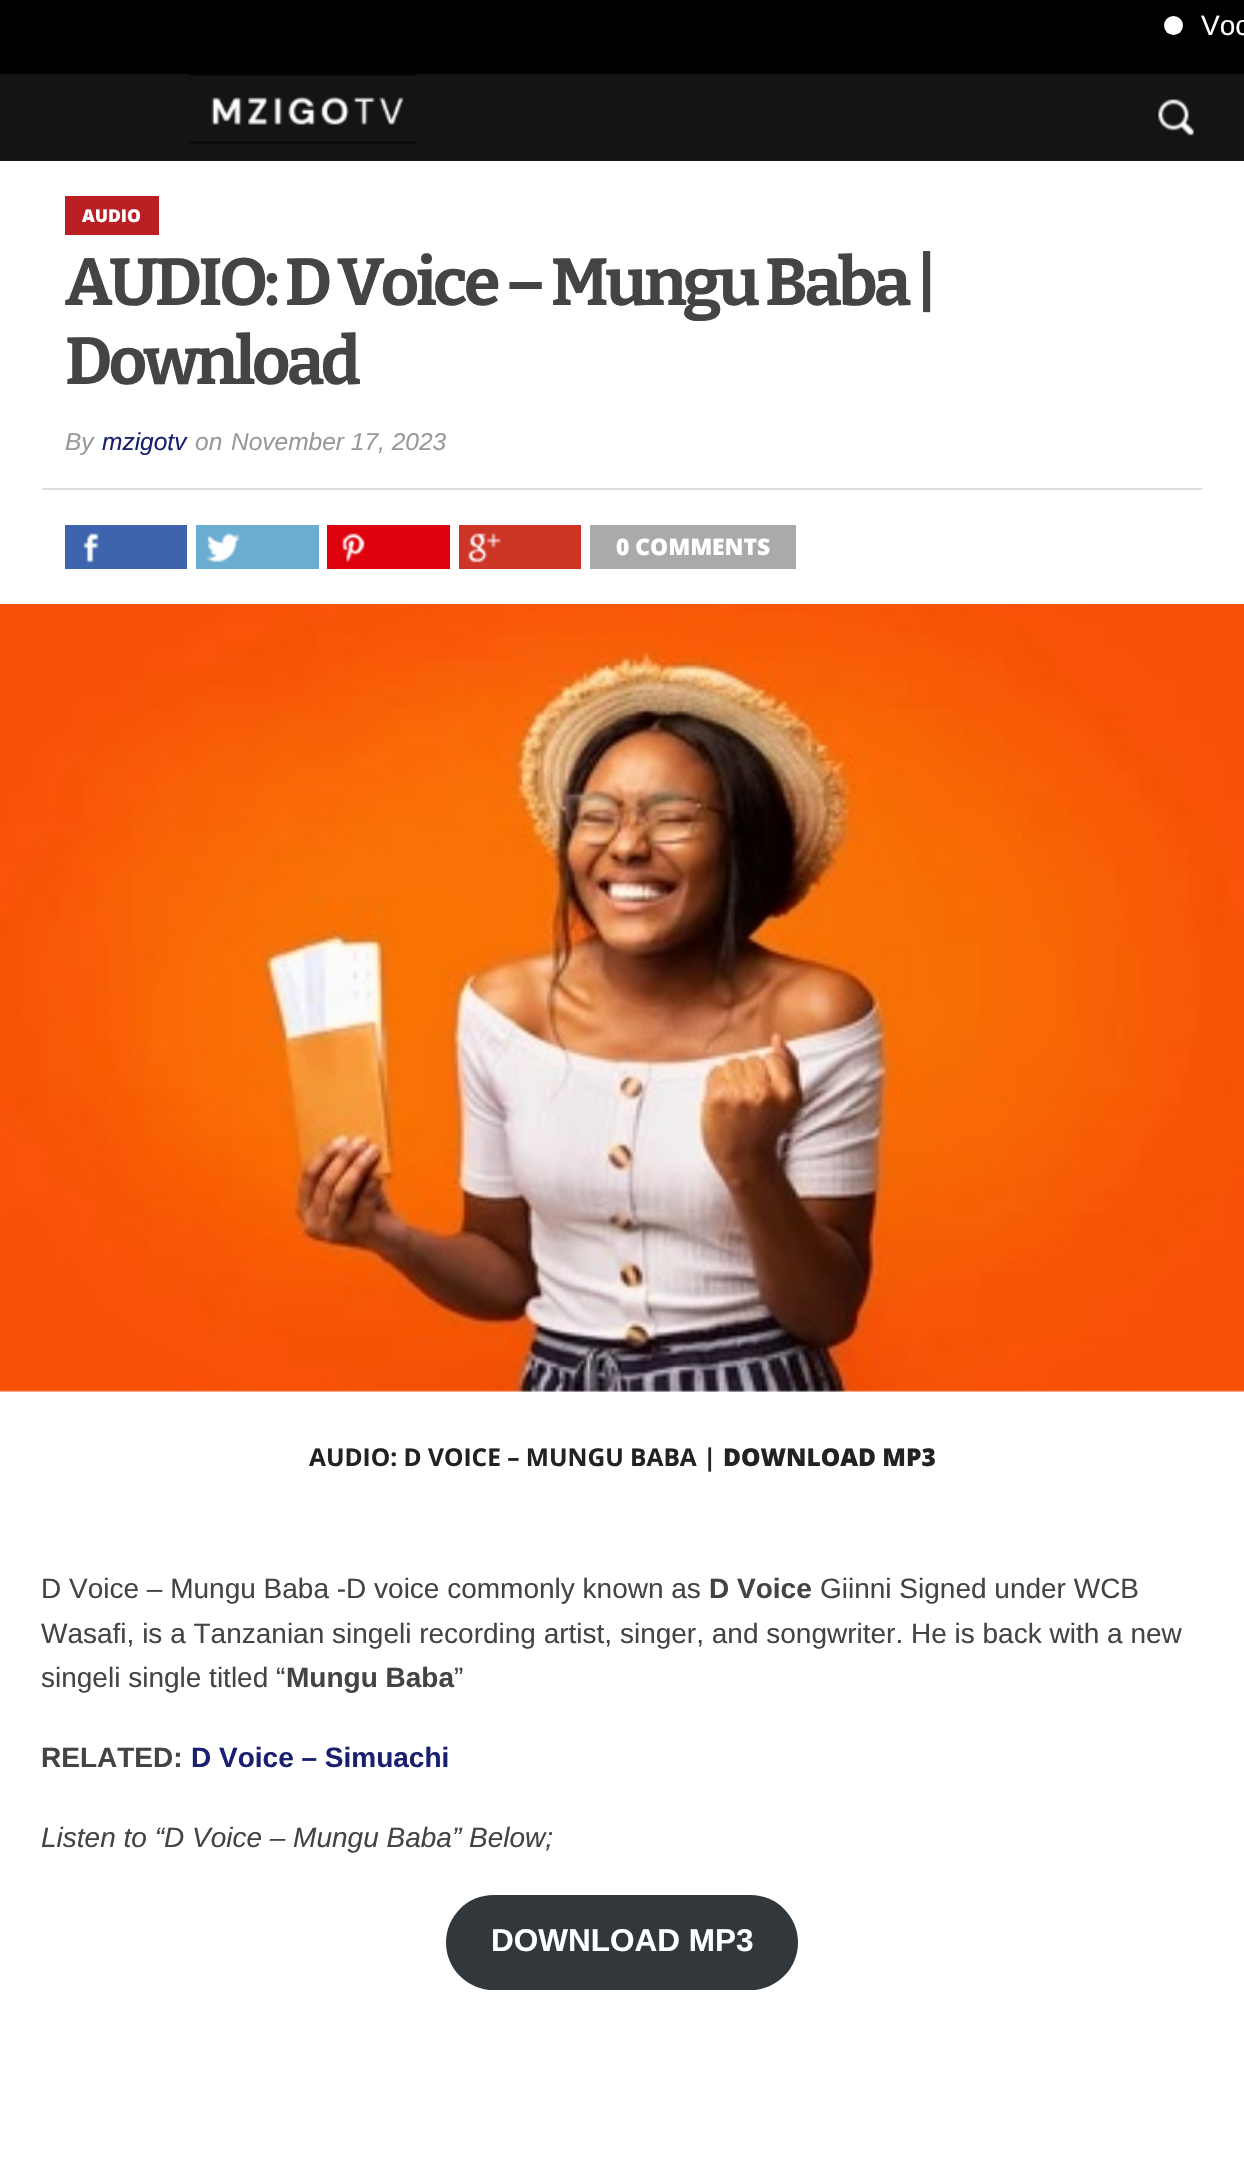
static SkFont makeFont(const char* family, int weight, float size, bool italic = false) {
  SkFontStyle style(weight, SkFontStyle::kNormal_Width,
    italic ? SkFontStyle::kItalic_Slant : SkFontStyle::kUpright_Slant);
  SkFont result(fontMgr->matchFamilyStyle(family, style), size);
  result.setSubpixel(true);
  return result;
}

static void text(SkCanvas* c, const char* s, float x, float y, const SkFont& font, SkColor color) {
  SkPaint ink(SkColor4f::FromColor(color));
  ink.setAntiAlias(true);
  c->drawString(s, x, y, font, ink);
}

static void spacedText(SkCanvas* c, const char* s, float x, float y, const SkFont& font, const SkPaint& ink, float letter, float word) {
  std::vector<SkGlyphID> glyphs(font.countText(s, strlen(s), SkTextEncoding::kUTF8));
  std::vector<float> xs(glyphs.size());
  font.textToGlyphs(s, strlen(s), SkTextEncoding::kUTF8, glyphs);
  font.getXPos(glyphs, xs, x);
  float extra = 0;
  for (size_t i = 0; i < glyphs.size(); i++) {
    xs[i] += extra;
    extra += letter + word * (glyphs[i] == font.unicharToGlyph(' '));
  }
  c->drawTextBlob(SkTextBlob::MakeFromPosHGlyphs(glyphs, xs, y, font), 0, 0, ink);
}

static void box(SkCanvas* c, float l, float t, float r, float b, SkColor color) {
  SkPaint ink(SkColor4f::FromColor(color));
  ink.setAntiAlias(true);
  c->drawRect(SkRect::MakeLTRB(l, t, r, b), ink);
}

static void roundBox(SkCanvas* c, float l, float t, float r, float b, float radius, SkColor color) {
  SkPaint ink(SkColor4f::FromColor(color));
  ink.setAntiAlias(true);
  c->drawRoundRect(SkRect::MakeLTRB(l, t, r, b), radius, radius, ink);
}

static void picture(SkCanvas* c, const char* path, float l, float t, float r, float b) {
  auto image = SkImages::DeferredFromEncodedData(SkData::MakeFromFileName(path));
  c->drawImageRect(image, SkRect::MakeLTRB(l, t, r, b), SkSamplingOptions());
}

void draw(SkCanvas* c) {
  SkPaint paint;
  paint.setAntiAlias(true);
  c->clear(0xff000000);
  paint.setColor(0xffffffff);
  c->drawCircle(1173.5f, 25.5f, 9.5f, paint);
  SkFont face1 = makeFont("Liberation Sans", 400, 28);
  text(c, "Voc", 1201, 35, face1, 0xffffffff);
  box(c, 0, 74, 1244, 161, 0xff141414);
  picture(c, "img_01.png", 189, 74, 417, 144);
  picture(c, "img_02.png", 1158, 99, 1194, 136);
  box(c, 0, 161, 1244, 2157, 0xffffffff);
  box(c, 42, 488, 1202, 490, 0xffdddddd);
  box(c, 65, 196, 159, 235, 0xffba1f24);
  SkFont face2 = makeFont("Open Sans", 800, 17.5f);
  text(c, "AUDIO", 82, 222, face2, 0xffffffff);
  SkFont face3 = makeFont("Bitter", 700, 66.5f);
  paint.setColor(0xff444444);
  spacedText(c, "AUDIO: D Voice – Mungu Baba |", 65, 305, face3, paint, -3.5f, 0);
  spacedText(c, "Download", 65, 384, face3, paint, -3.5f, 0);
  SkFont face4 = makeFont("Liberation Sans", 400, 24.5f, true);
  text(c, "By", 65, 450, face4, 0xff999999);
  text(c, "mzigotv", 102, 450, face4, 0xff1a2070);
  text(c, "on", 195, 450, face4, 0xff999999);
  text(c, "November 17, 2023", 231, 450, face4, 0xff999999);
  box(c, 65, 525, 187, 569, 0xff3e64ad);
  picture(c, "img_03.png", 83, 533, 99, 563);
  box(c, 196, 525, 319, 569, 0xff6aadd1);
  picture(c, "img_04.png", 206, 533, 240, 563);
  box(c, 327, 525, 450, 569, 0xffde010d);
  picture(c, "img_05.png", 342, 533, 365, 563);
  box(c, 459, 525, 581, 569, 0xffcd3627);
  picture(c, "img_06.png", 468, 533, 501, 563);
  box(c, 590, 525, 796, 569, 0xffaaaaaa);
  SkFont face5 = makeFont("Open Sans", 800, 22.75f);
  text(c, "0 COMMENTS", 616, 555, face5, 0xffffffff);
  picture(c, "img_07.png", 0, 604, 1244, 1392);
  SkFont face6 = makeFont("Open Sans", 700, 24.5f);
  text(c, "AUDIO: D VOICE – MUNGU BABA |", 309, 1466, face6, 0xff222222);
  SkFont face7 = makeFont("Open Sans", 800, 24.5f);
  text(c, "DOWNLOAD MP3", 723, 1466, face7, 0xff222222);
  text(c, "D Voice – Mungu Baba -D voice commonly known as", 41, 1598, face1, 0xff444444);
  SkFont face8 = makeFont("Liberation Sans", 700, 28);
  text(c, "D Voice", 709, 1598, face8, 0xff444444);
  text(c, "Giinni Signed under WCB", 820, 1598, face1, 0xff444444);
  text(c, "Wasafi, is a Tanzanian singeli recording artist, singer, and songwriter. He is back with a new", 41, 1643, face1, 0xff444444);
  text(c, "singeli single titled “", 41, 1687, face1, 0xff444444);
  text(c, "Mungu Baba", 286, 1687, face8, 0xff444444);
  text(c, "”", 454, 1687, face1, 0xff444444);
  text(c, "RELATED:", 41, 1767, face8, 0xff444444);
  text(c, "D Voice – Simuachi", 191, 1767, face8, 0xff1a2070);
  SkFont face9 = makeFont("Liberation Sans", 400, 28, true);
  text(c, "Listen to “D Voice – Mungu Baba” Below;", 41, 1847, face9, 0xff444444);
  roundBox(c, 446, 1895, 798, 1990, 47.5f, 0xff32373c);
  SkFont face10 = makeFont("Liberation Sans", 700, 31.5f);
  text(c, "DOWNLOAD MP3", 491, 1951, face10, 0xffffffff);
}
